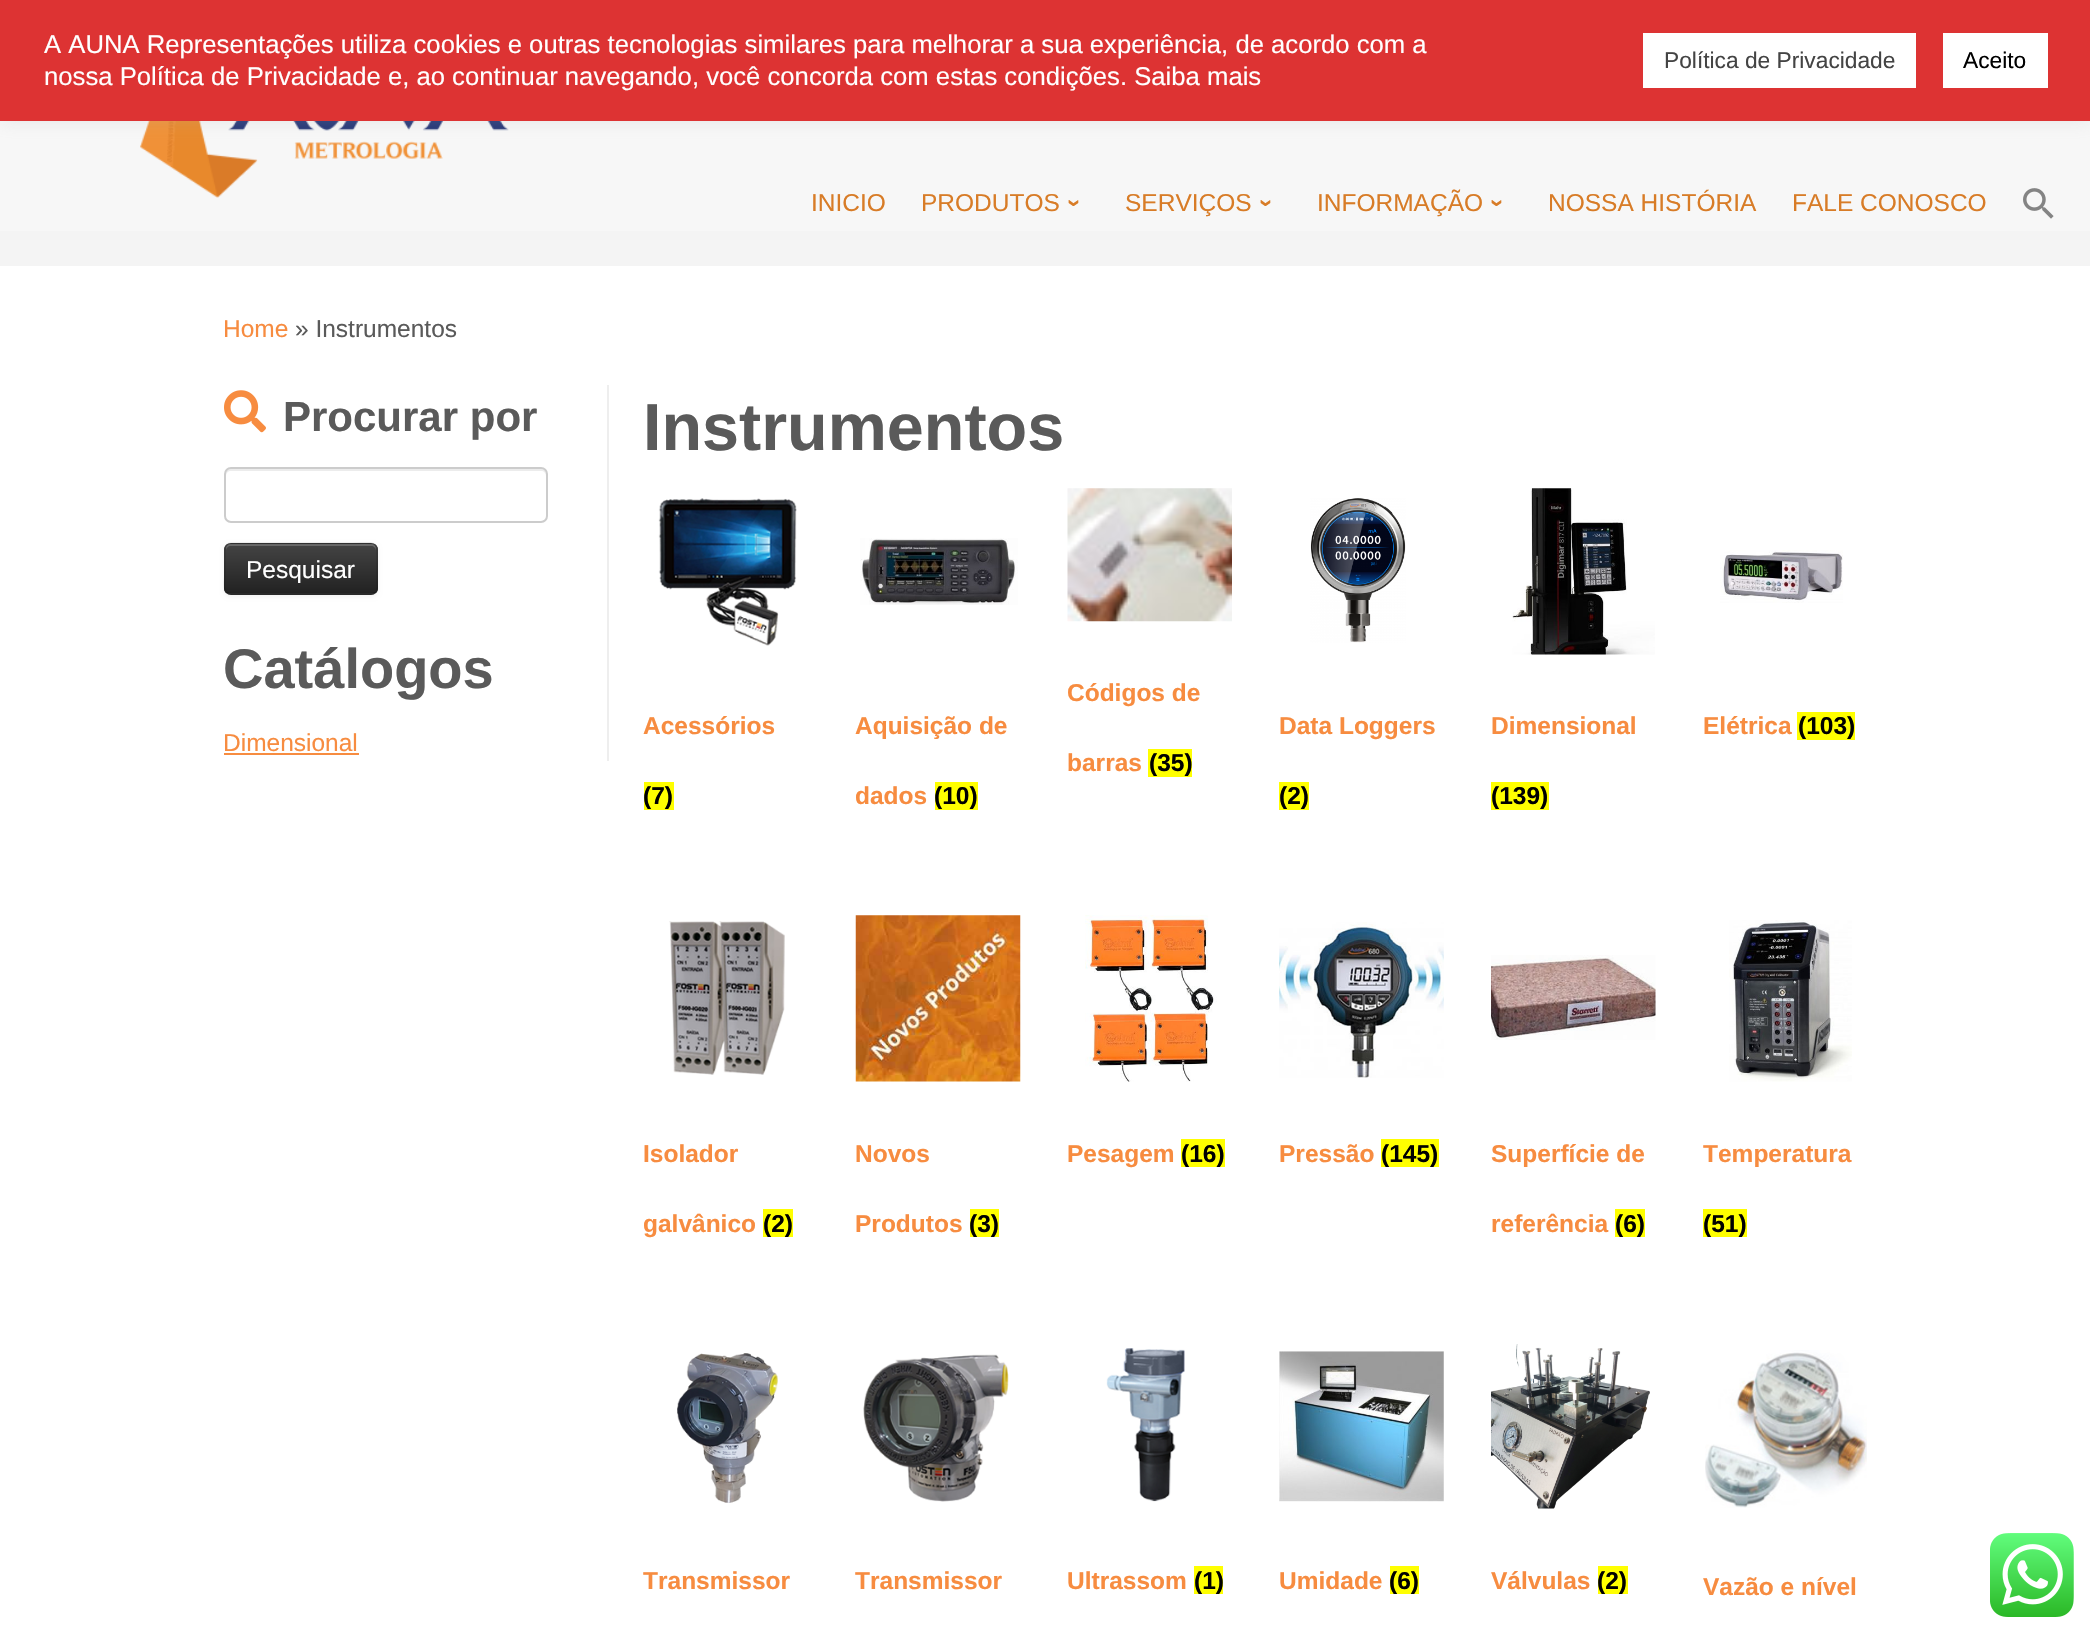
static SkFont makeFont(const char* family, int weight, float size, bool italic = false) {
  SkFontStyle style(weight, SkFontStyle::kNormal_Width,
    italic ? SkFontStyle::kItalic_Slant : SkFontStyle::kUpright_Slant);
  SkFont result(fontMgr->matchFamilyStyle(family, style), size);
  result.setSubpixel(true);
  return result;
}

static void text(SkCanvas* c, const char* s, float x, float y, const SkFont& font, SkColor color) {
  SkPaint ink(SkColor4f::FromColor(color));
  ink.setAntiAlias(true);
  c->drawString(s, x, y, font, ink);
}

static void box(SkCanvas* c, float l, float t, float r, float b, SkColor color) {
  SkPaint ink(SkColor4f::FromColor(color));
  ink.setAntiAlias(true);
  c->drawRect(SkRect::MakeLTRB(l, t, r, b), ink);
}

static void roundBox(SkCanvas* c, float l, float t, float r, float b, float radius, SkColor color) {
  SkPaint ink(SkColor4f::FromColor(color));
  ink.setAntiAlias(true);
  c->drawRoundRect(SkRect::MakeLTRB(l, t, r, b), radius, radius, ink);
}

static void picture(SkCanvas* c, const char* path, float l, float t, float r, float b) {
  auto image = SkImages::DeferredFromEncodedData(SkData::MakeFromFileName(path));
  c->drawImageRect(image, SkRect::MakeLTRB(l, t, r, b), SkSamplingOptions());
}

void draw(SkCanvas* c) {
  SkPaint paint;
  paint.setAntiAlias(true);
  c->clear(0xffffffff);
  box(c, 0, 121, 2090, 231, 0xfff7f7f7);
  picture(c, "img_01.png", 140, 121, 509, 198);
  paint.setColor(0x4dacabab);
  paint.setMaskFilter(SkMaskFilter::MakeBlur(kNormal_SkBlurStyle, 9));
  c->drawRect(SkRect::MakeLTRB(0, -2, 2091, 119), paint);
  paint.setMaskFilter(nullptr);
  box(c, 0, 0, 2090, 121, 0xffdd3333);
  SkFont face1 = makeFont("Liberation Sans", 400, 25.67f);
  text(c, "A AUNA Representações utiliza cookies e outras tecnologias similares para melhorar a sua experiência, de acordo com a", 44, 53, face1, 0xffffffff);
  text(c, "nossa Política de Privacidade e, ao continuar navegando, você concorda com estas condições. Saiba mais", 44, 85, face1, 0xffffffff);
  box(c, 1643, 33, 1916, 88, 0xffffffff);
  SkFont face2 = makeFont("Liberation Sans", 400, 22.75f);
  text(c, "Política de Privacidade", 1664, 68, face2, 0xff444444);
  box(c, 1943, 33, 2048, 88, 0xffffffff);
  text(c, "Aceito", 1963, 68, face2, 0xff000000);
  SkFont face3 = makeFont("Liberation Sans", 400, 24.5f);
  text(c, "INICIO", 811, 211, face3, 0xffd87c27);
  text(c, "PRODUTOS", 921, 211, face3, 0xffd87c27);
  SkFont face4 = makeFont("Liberation Sans", 700, 24.5f);
  c->save();
  c->rotate(90, 1067, 199);
  text(c, "›", 1067, 199, face4, 0xffd87c27);
  c->restore();
  text(c, "SERVIÇOS", 1125, 211, face3, 0xffd87c27);
  c->save();
  c->rotate(90, 1259, 199);
  text(c, "›", 1259, 199, face4, 0xffd87c27);
  c->restore();
  text(c, "INFORMAÇÃO", 1317, 211, face3, 0xffd87c27);
  c->save();
  c->rotate(90, 1490, 199);
  text(c, "›", 1490, 199, face4, 0xffd87c27);
  c->restore();
  text(c, "NOSSA HISTÓRIA", 1548, 211, face3, 0xffd87c27);
  text(c, "FALE CONOSCO", 1792, 211, face3, 0xffd87c27);
  picture(c, "img_02.png", 2023, 188, 2054, 219);
  box(c, 0, 231, 2090, 266, 0xfff4f4f4);
  text(c, "Home", 223, 337, face3, 0xfff78c40);
  text(c, "» Instrumentos", 295, 337, face3, 0xff5a5a5a);
  box(c, 607, 385, 609, 761, 0xffeeeeee);
  picture(c, "img_03.png", 224, 390, 266, 433);
  SkFont face5 = makeFont("Liberation Sans", 700, 42);
  text(c, "Procurar por", 283, 431, face5, 0xff5a5a5a);
  paint.setColor(0xffececec);
  c->drawPath(SkPathBuilder().moveTo(231, 471).lineTo(541, 471).cubicTo(544, 471, 546, 473, 546, 476).lineTo(546, 474).cubicTo(546, 471, 544, 469, 541, 469).lineTo(231, 469).cubicTo(228, 469, 226, 471, 226, 474).lineTo(226, 476).cubicTo(226, 473, 228, 471, 231, 471).close().detach(), paint);
  paint.setStyle(SkPaint::kStroke_Style);
  paint.setStrokeWidth(2);
  paint.setColor(0xffcccccc);
  c->drawRoundRect(SkRect::MakeLTRB(225, 468, 547, 522), 6, 6, paint);
  paint.setStyle(SkPaint::kFill_Style);
  paint.setColor(0x0d000000);
  paint.setMaskFilter(SkMaskFilter::MakeBlur(kNormal_SkBlurStyle, 2));
  c->drawRoundRect(SkRect::MakeLTRB(224, 544, 378, 597), 7, 7, paint);
  paint.setMaskFilter(nullptr);
  roundBox(c, 224, 543, 378, 595, 7, 0xff363636);
  c->save();
  c->clipPath(SkPathBuilder().moveTo(231, 543).lineTo(371, 543).cubicTo(375, 543, 378, 546, 378, 550).lineTo(378, 588).cubicTo(378, 592, 375, 595, 371, 595).lineTo(231, 595).cubicTo(227, 595, 224, 592, 224, 588).lineTo(224, 550).cubicTo(224, 546, 227, 543, 231, 543).close().detach(), true);
  {
    const SkColor colors[] = {0xff444444, 0xff222222};
    const float stops[] = {0, 1};
    const SkPoint ends[] = {{301, 544}, {301, 593}};
    paint.setShader(SkGradientShader::MakeLinear(ends, colors, stops, 2, SkTileMode::kClamp));
    paint.setAlpha(255);
  }
  c->drawRect(SkRect::MakeLTRB(224, 544, 378, 593), paint);
  c->restore();
  paint.setShader(nullptr);
  paint.setColor(0x33ffffff);
  c->drawPath(SkPathBuilder().moveTo(231, 546).lineTo(371, 546).cubicTo(374, 546, 376, 548, 376, 551).lineTo(376, 549).cubicTo(376, 546, 374, 544, 371, 544).lineTo(231, 544).cubicTo(228, 544, 226, 546, 226, 549).lineTo(226, 551).cubicTo(226, 548, 228, 546, 231, 546).close().detach(), paint);
  paint.setStyle(SkPaint::kStroke_Style);
  paint.setStrokeWidth(1.8f);
  paint.setColor(0x40000000);
  c->drawPath(SkPathBuilder().moveTo(375.5f, 592.5f).cubicTo(374, 593.5f, 372.5f, 594, 371, 594).lineTo(231, 594).cubicTo(229.5f, 594, 228, 593.5f, 226.5f, 592.5f).detach(), paint);
  paint.setColor(0x1a000000);
  c->drawPath(SkPathBuilder().moveTo(226.5f, 592.5f).cubicTo(223, 589, 225, 579, 225, 575).lineTo(225, 556).cubicTo(225, 551, 224, 543.5f, 231, 543.5f).lineTo(347.5f, 543.5f).cubicTo(381, 543.5f, 377, 538, 377, 569).lineTo(377, 581.5f).cubicTo(377, 585, 378, 589.5f, 375.5f, 592.5f).detach(), paint);
  text(c, "Pesquisar", 246, 578, face3, 0xffffffff);
  SkFont face6 = makeFont("Liberation Sans", 700, 56);
  text(c, "Catálogos", 223, 688, face6, 0xff5a5a5a);
  text(c, "Dimensional", 223, 751, face3, 0xfff78c40);
  box(c, 224, 753, 359, 755, 0xfff78c40);
  SkFont face7 = makeFont("Liberation Sans", 700, 66.5f);
  text(c, "Instrumentos", 643, 450, face7, 0xff5a5a5a);
  picture(c, "img_04.png", 658, 498, 797, 646);
  text(c, "Acessórios", 643, 734, face4, 0xfff78c40);
  box(c, 644, 782, 674, 810, 0xffffff00);
  text(c, "(7)", 643, 804, face4, 0xff000000);
  picture(c, "img_05.png", 860, 538, 1018, 605);
  text(c, "Aquisição de", 855, 734, face4, 0xfff78c40);
  text(c, "dados", 855, 804, face4, 0xfff78c40);
  box(c, 935, 782, 978, 810, 0xffffff00);
  text(c, "(10)", 934, 804, face4, 0xff000000);
  picture(c, "img_06.png", 1067, 488, 1232, 622);
  text(c, "Códigos de", 1067, 701, face4, 0xfff78c40);
  text(c, "barras", 1067, 771, face4, 0xfff78c40);
  box(c, 1148, 749, 1192, 777, 0xffffff00);
  text(c, "(35)", 1149, 771, face4, 0xff000000);
  picture(c, "img_07.png", 1310, 498, 1406, 643);
  text(c, "Data Loggers", 1279, 734, face4, 0xfff78c40);
  box(c, 1279, 782, 1309, 810, 0xffffff00);
  text(c, "(2)", 1279, 804, face4, 0xff000000);
  picture(c, "img_08.png", 1512, 488, 1655, 655);
  text(c, "Dimensional", 1491, 734, face4, 0xfff78c40);
  box(c, 1491, 782, 1549, 810, 0xffffff00);
  text(c, "(139)", 1491, 804, face4, 0xff000000);
  picture(c, "img_09.png", 1720, 550, 1843, 603);
  text(c, "Elétrica", 1703, 734, face4, 0xfff78c40);
  box(c, 1797, 712, 1855, 740, 0xffffff00);
  text(c, "(103)", 1798, 734, face4, 0xff000000);
  picture(c, "img_10.png", 669, 921, 785, 1075);
  text(c, "Isolador", 643, 1162, face4, 0xfff78c40);
  text(c, "galvânico", 643, 1232, face4, 0xfff78c40);
  box(c, 763, 1209, 793, 1237, 0xffffff00);
  text(c, "(2)", 763, 1232, face4, 0xff000000);
  picture(c, "img_11.png", 855, 915, 1021, 1082);
  text(c, "Novos", 855, 1162, face4, 0xfff78c40);
  text(c, "Produtos", 855, 1232, face4, 0xfff78c40);
  box(c, 970, 1209, 999, 1237, 0xffffff00);
  text(c, "(3)", 969, 1232, face4, 0xff000000);
  picture(c, "img_12.png", 1085, 915, 1217, 1082);
  text(c, "Pesagem", 1067, 1162, face4, 0xfff78c40);
  box(c, 1181, 1139, 1225, 1167, 0xffffff00);
  text(c, "(16)", 1181, 1162, face4, 0xff000000);
  picture(c, "img_13.png", 1279, 922, 1444, 1078);
  text(c, "Pressão", 1279, 1162, face4, 0xfff78c40);
  box(c, 1381, 1139, 1439, 1167, 0xffffff00);
  text(c, "(145)", 1381, 1162, face4, 0xff000000);
  picture(c, "img_14.png", 1491, 955, 1656, 1040);
  text(c, "Superfície de", 1491, 1162, face4, 0xfff78c40);
  text(c, "referência", 1491, 1232, face4, 0xfff78c40);
  box(c, 1615, 1209, 1645, 1237, 0xffffff00);
  text(c, "(6)", 1615, 1232, face4, 0xff000000);
  picture(c, "img_15.png", 1729, 920, 1852, 1082);
  text(c, "Temperatura", 1703, 1162, face4, 0xfff78c40);
  box(c, 1703, 1209, 1747, 1237, 0xffffff00);
  text(c, "(51)", 1703, 1232, face4, 0xff000000);
  picture(c, "img_16.png", 677, 1353, 778, 1503);
  text(c, "Transmissor", 643, 1589, face4, 0xfff78c40);
  picture(c, "img_17.png", 863, 1354, 1009, 1502);
  text(c, "Transmissor", 855, 1589, face4, 0xfff78c40);
  picture(c, "img_18.png", 1106, 1348, 1185, 1502);
  text(c, "Ultrassom", 1067, 1589, face4, 0xfff78c40);
  box(c, 1194, 1566, 1223, 1594, 0xffffff00);
  text(c, "(1)", 1194, 1589, face4, 0xff000000);
  picture(c, "img_19.png", 1279, 1351, 1444, 1502);
  text(c, "Umidade", 1279, 1589, face4, 0xfff78c40);
  box(c, 1390, 1566, 1419, 1594, 0xffffff00);
  text(c, "(6)", 1389, 1589, face4, 0xff000000);
  picture(c, "img_20.png", 1491, 1344, 1650, 1509);
  text(c, "Válvulas", 1491, 1589, face4, 0xfff78c40);
  box(c, 1598, 1566, 1628, 1594, 0xffffff00);
  text(c, "(2)", 1597, 1589, face4, 0xff000000);
  picture(c, "img_21.png", 1705, 1350, 1867, 1508);
  text(c, "Vazão e nível", 1703, 1595, face4, 0xfff78c40);
  picture(c, "img_22.png", 1990, 1533, 2074, 1617);
}
